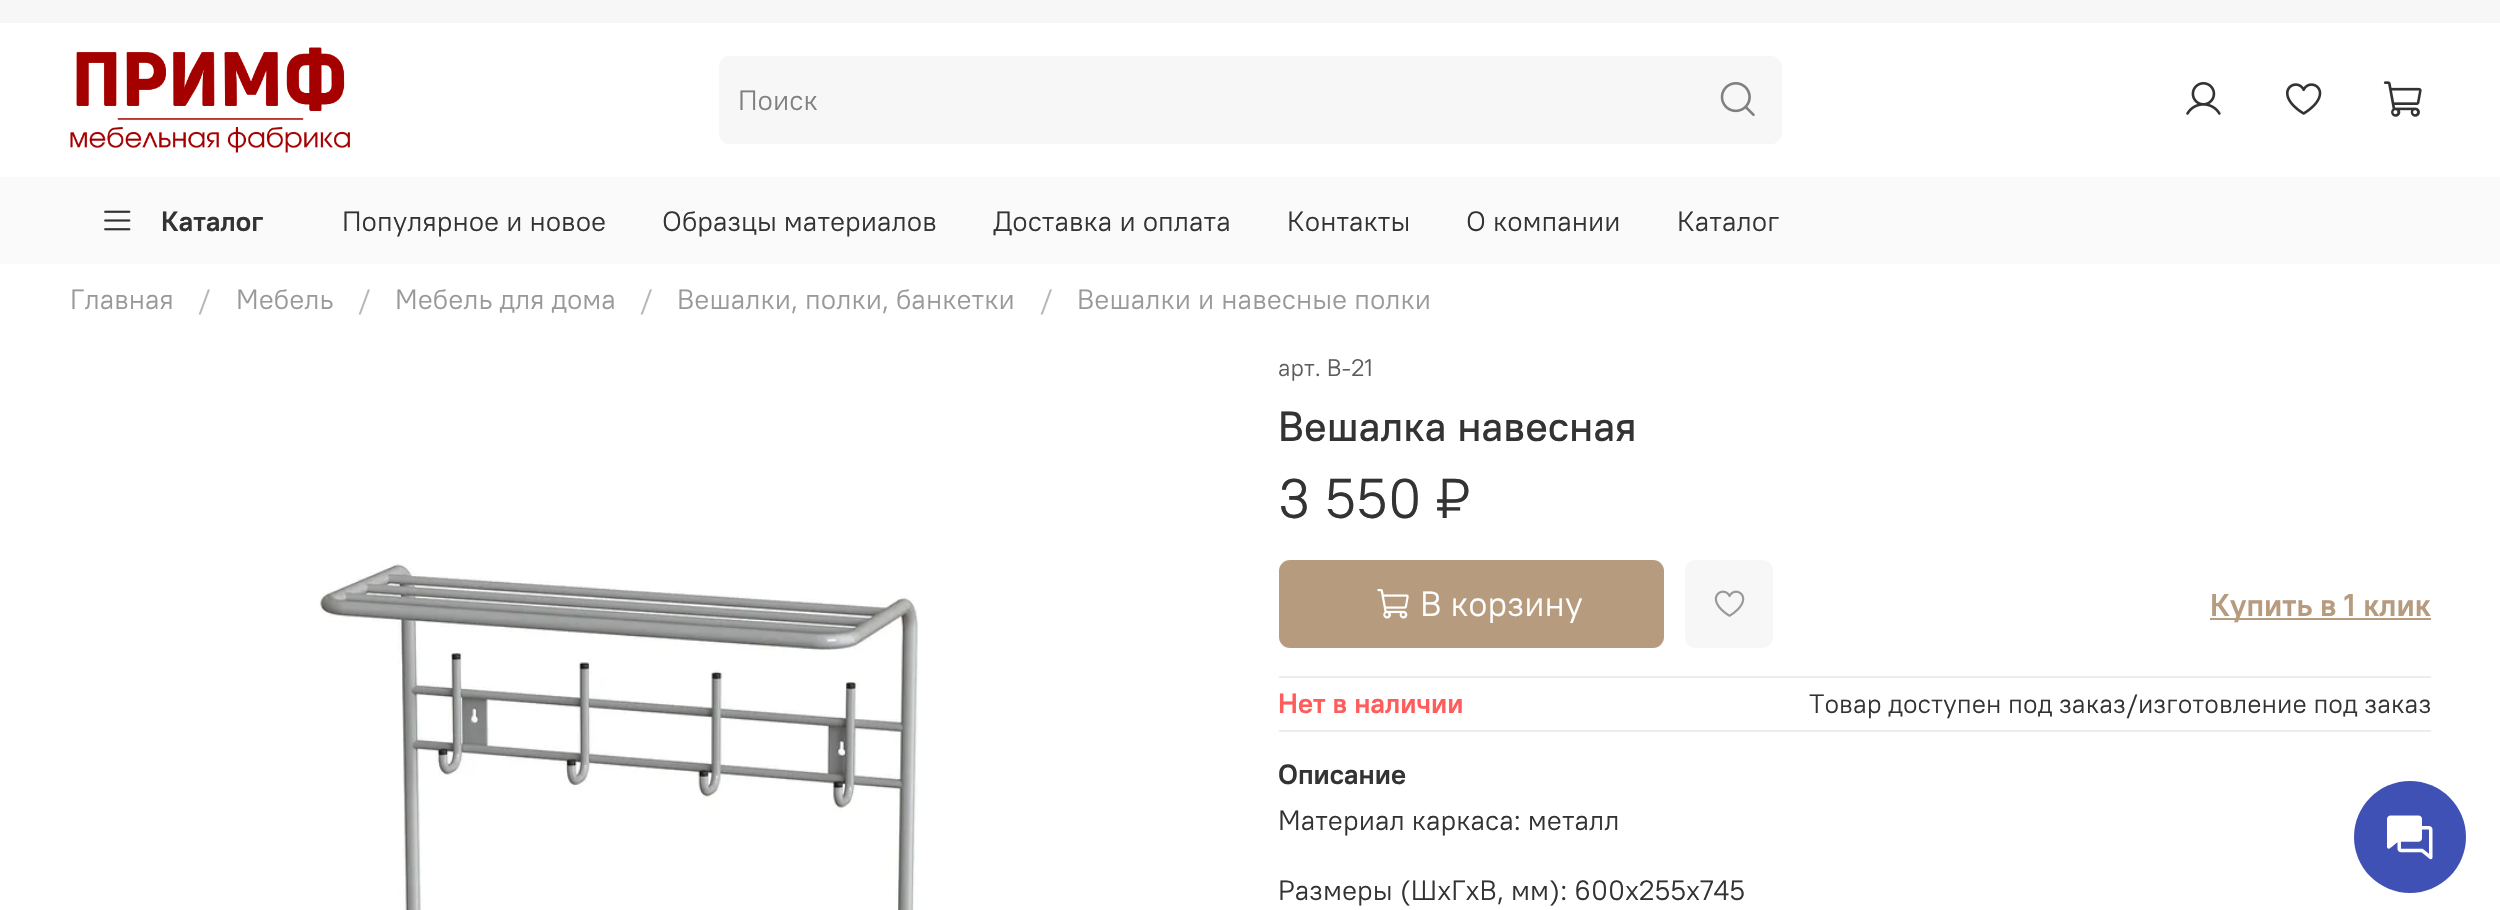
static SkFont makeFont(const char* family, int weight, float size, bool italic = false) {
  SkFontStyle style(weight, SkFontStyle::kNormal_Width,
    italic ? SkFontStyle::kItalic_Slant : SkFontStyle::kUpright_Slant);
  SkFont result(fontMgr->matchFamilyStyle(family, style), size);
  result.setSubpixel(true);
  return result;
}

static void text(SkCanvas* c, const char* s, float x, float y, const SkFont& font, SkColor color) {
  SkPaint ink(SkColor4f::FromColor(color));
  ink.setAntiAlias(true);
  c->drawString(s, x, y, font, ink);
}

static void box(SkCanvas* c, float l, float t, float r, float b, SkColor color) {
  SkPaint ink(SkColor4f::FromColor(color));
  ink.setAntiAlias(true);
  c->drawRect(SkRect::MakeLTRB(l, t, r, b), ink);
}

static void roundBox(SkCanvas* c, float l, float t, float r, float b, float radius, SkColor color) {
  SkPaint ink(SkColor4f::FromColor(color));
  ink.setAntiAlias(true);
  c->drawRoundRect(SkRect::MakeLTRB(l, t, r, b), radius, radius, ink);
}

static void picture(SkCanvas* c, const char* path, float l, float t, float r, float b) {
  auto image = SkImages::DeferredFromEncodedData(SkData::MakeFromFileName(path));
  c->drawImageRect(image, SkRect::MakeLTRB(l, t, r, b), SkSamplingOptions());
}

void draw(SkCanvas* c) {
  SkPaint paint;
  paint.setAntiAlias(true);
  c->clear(0xffffffff);
  box(c, 0, 0, 2500, 23, 0xfff7f7f7);
  picture(c, "img_01.png", 70, 47, 350, 153);
  paint.setColor(0xfff7f7f7);
  c->drawPath(SkPathBuilder().moveTo(730, 56).lineTo(1694, 56).lineTo(1694, 144).lineTo(730, 144).cubicTo(724, 144, 719, 139, 719, 133).lineTo(719, 67).cubicTo(719, 61, 724, 56, 730, 56).close().detach(), paint);
  c->drawPath(SkPathBuilder(SkPathFillType::kEvenOdd).moveTo(730, 56).lineTo(1694, 56).lineTo(1694, 144).lineTo(730, 144).cubicTo(724, 144, 719, 139, 719, 133).lineTo(719, 66).cubicTo(719, 61, 724, 56, 730, 56).close().moveTo(730, 58).lineTo(1694, 58).lineTo(1694, 142).lineTo(730, 142).cubicTo(725, 142, 721, 138, 721, 133).lineTo(721, 66).cubicTo(721, 62, 725, 58, 730, 58).close().detach(), paint);
  SkFont face1 = makeFont("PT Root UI", 400, 28);
  text(c, "Поиск", 738, 110, face1, 0xff808080);
  c->drawPath(SkPathBuilder().moveTo(1694, 56).lineTo(1771, 56).cubicTo(1777, 56, 1782, 61, 1782, 67).lineTo(1782, 133).cubicTo(1782, 139, 1777, 144, 1771, 144).lineTo(1694, 144).close().detach(), paint);
  picture(c, "img_02.png", 1720, 82, 1755, 117);
  picture(c, "img_03.png", 2186, 82, 2221, 115);
  picture(c, "img_04.png", 2286, 83, 2322, 115);
  picture(c, "img_05.png", 2383, 81, 2422, 117);
  box(c, 0, 177, 2500, 264, 0xfffafafa);
  picture(c, "img_06.png", 104, 210, 131, 231);
  SkFont face2 = makeFont("PT Root UI", 700, 28);
  text(c, "Каталог", 161, 231, face2, 0xff333333);
  text(c, "Популярное и новое", 342, 231, face1, 0xff333333);
  text(c, "Образцы материалов", 662, 231, face1, 0xff333333);
  text(c, "Доставка и оплата", 993, 231, face1, 0xff333333);
  text(c, "Контакты", 1287, 231, face1, 0xff333333);
  text(c, "О компании", 1466, 231, face1, 0xff333333);
  text(c, "Каталог", 1677, 231, face1, 0xff333333);
  text(c, "Главная", 70, 309, face1, 0xff999999);
  text(c, "/", 198, 309, face1, 0xffb8b8b8);
  text(c, "Мебель", 236, 309, face1, 0xff999999);
  text(c, "/", 358, 309, face1, 0xffb8b8b8);
  text(c, "Мебель для дома", 395, 309, face1, 0xff999999);
  text(c, "/", 640, 309, face1, 0xffb8b8b8);
  text(c, "Вешалки, полки, банкетки", 677, 309, face1, 0xff999999);
  text(c, "/", 1040, 309, face1, 0xffb8b8b8);
  text(c, "Вешалки и навесные полки", 1077, 309, face1, 0xff999999);
  picture(c, "img_07.png", 319, 563, 919, 910);
  SkFont face3 = makeFont("PT Root UI", 400, 24);
  text(c, "арт. В-21", 1278, 376, face3, 0xff5c5c5c);
  SkFont face4 = makeFont("PT Root UI", 500, 42);
  text(c, "Вешалка навесная", 1278, 441, face4, 0xff333333);
  SkFont face5 = makeFont("PT Root UI", 400, 56);
  text(c, "3 550 ₽", 1278, 518, face5, 0xff333333);
  roundBox(c, 1279, 560, 1664, 648, 11, 0xffb79b7e);
  picture(c, "img_08.png", 1377, 589, 1409, 619);
  SkFont face6 = makeFont("PT Root UI", 400, 35);
  text(c, "В корзину", 1420, 616, face6, 0xffffffff);
  roundBox(c, 1685, 560, 1773, 648, 11, 0xfff7f7f7);
  picture(c, "img_09.png", 1714, 590, 1745, 617);
  box(c, 2210, 618, 2431, 620, 0xffb79b7e);
  SkFont face7 = makeFont("PT Root UI", 700, 31.5f);
  text(c, "Купить в 1 клик", 2210, 616, face7, 0xffb79b7e);
  box(c, 1279, 676, 2431, 678, 0xffededed);
  box(c, 1279, 730, 2431, 732, 0xffededed);
  text(c, "Нет в наличии", 1278, 713, face2, 0xffff5c5c);
  SkFont face8 = makeFont("PT Root UI", 400, 26.6f);
  text(c, "Товар доступен под заказ/изготовление под заказ", 1809, 713, face8, 0xff333333);
  text(c, "Описание", 1278, 784, face2, 0xff333333);
  text(c, "Материал каркаса: металл", 1278, 830, face1, 0xff333333);
  text(c, "Размеры (ШхГхВ, мм): 600х255х745", 1278, 900, face1, 0xff333333);
  paint.setColor(0xff4051b5);
  c->drawCircle(2410, 837, 56, paint);
  picture(c, "img_10.png", 2387, 815, 2433, 860);
}
